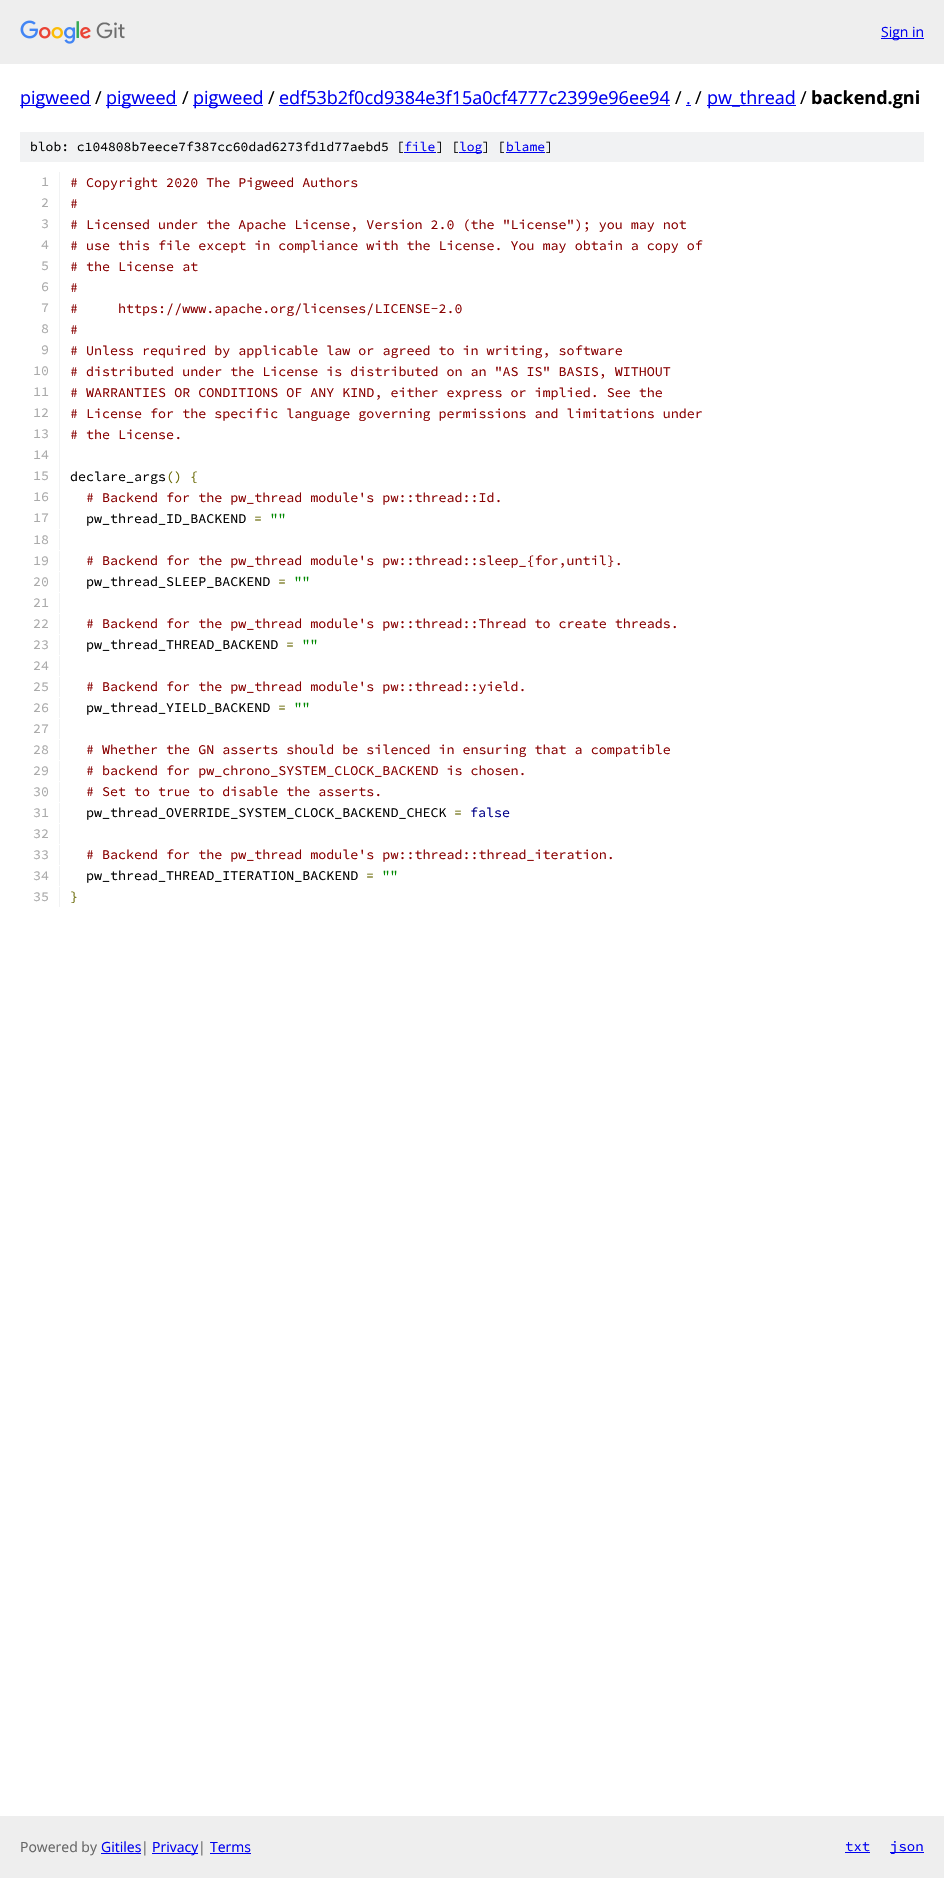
static SkFont makeFont(const char* family, int weight, float size, bool italic = false) {
  SkFontStyle style(weight, SkFontStyle::kNormal_Width,
    italic ? SkFontStyle::kItalic_Slant : SkFontStyle::kUpright_Slant);
  SkFont result(fontMgr->matchFamilyStyle(family, style), size);
  result.setSubpixel(true);
  return result;
}

static void text(SkCanvas* c, const char* s, float x, float y, const SkFont& font, SkColor color) {
  SkPaint ink(SkColor4f::FromColor(color));
  ink.setAntiAlias(true);
  c->drawString(s, x, y, font, ink);
}

static void box(SkCanvas* c, float l, float t, float r, float b, SkColor color) {
  SkPaint ink(SkColor4f::FromColor(color));
  ink.setAntiAlias(true);
  c->drawRect(SkRect::MakeLTRB(l, t, r, b), ink);
}

static void picture(SkCanvas* c, const char* path, float l, float t, float r, float b) {
  auto image = SkImages::DeferredFromEncodedData(SkData::MakeFromFileName(path));
  c->drawImageRect(image, SkRect::MakeLTRB(l, t, r, b), SkSamplingOptions());
}

void draw(SkCanvas* c) {
  SkPaint paint;
  paint.setAntiAlias(true);
  c->clear(0xffffffff);
  box(c, 0, 0, 944, 64, 0xffeeeeee);
  picture(c, "img_01.png", 20, 20, 125, 44);
  box(c, 881, 38, 924, 39, 0xff0000ee);
  SkFont face1 = makeFont("Open Sans", 400, 14);
  text(c, "Sign in", 881, 37, face1, 0xff0000ee);
  box(c, 20, 105, 91, 106, 0xff0000ee);
  SkFont face2 = makeFont("Open Sans", 400, 18);
  text(c, "pigweed", 20, 104, face2, 0xff0000ee);
  text(c, "/", 95, 104, face2, 0xff000000);
  box(c, 106, 105, 177, 106, 0xff0000ee);
  text(c, "pigweed", 106, 104, face2, 0xff0000ee);
  text(c, "/", 182, 104, face2, 0xff000000);
  box(c, 193, 105, 263, 106, 0xff0000ee);
  text(c, "pigweed", 193, 104, face2, 0xff0000ee);
  text(c, "/", 268, 104, face2, 0xff000000);
  text(c, "edf53b2f0cd9384e3f15a0cf4777c2399e96ee94", 279, 104, face2, 0xff0000ee);
  box(c, 279, 105, 670, 106, 0xff0000ee);
  text(c, "/", 675, 104, face2, 0xff000000);
  text(c, ".", 686, 104, face2, 0xff0000ee);
  box(c, 686, 105, 691, 106, 0xff0000ee);
  text(c, "/", 695, 104, face2, 0xff000000);
  box(c, 707, 105, 796, 106, 0xff0000ee);
  text(c, "pw_thread", 707, 104, face2, 0xff0000ee);
  text(c, "/", 800, 104, face2, 0xff000000);
  SkFont face3 = makeFont("Open Sans", 700, 18);
  text(c, "backend.gni", 811, 104, face3, 0xff000000);
  box(c, 20, 132, 924, 162, 0xfff1f2f3);
  SkFont face4 = makeFont("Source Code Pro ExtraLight", 200, 13);
  text(c, "blob: c104808b7eece7f387cc60dad6273fd1d77aebd5 [", 30, 151, face4, 0xff000000);
  text(c, "file", 404, 151, face4, 0xff0000ee);
  box(c, 404, 152, 436, 153, 0xff0000ee);
  text(c, "] [", 436, 151, face4, 0xff000000);
  box(c, 459, 152, 482, 153, 0xff0000ee);
  text(c, "log", 459, 151, face4, 0xff0000ee);
  text(c, "] [", 482, 151, face4, 0xff000000);
  text(c, "blame", 506, 151, face4, 0xff0000ee);
  box(c, 506, 152, 545, 153, 0xff0000ee);
  text(c, "]", 545, 151, face4, 0xff000000);
  box(c, 59, 172, 60, 529, 0xfff1f2f3);
  SkFont face5 = makeFont("Source Code Pro ExtraLight", 200, 13.35f);
  text(c, "1", 41, 186, face5, 0xffaaaaaa);
  text(c, "# Copyright 2020 The Pigweed Authors", 70, 187, face5, 0xff880000);
  text(c, "2", 41, 207, face5, 0xffaaaaaa);
  text(c, "#", 70, 208, face5, 0xff880000);
  text(c, "3", 41, 228, face5, 0xffaaaaaa);
  text(c, "# Licensed under the Apache License, Version 2.0 (the \"License\"); you may not", 70, 229, face5, 0xff880000);
  text(c, "4", 41, 249, face5, 0xffaaaaaa);
  text(c, "# use this file except in compliance with the License. You may obtain a copy of", 70, 250, face5, 0xff880000);
  text(c, "5", 41, 270, face5, 0xffaaaaaa);
  text(c, "# the License at", 70, 271, face5, 0xff880000);
  text(c, "6", 41, 291, face5, 0xffaaaaaa);
  text(c, "#", 70, 292, face5, 0xff880000);
  text(c, "7", 41, 312, face5, 0xffaaaaaa);
  text(c, "#     https://www.apache.org/licenses/LICENSE-2.0", 70, 313, face5, 0xff880000);
  text(c, "8", 41, 333, face5, 0xffaaaaaa);
  text(c, "#", 70, 334, face5, 0xff880000);
  text(c, "9", 41, 354, face5, 0xffaaaaaa);
  text(c, "# Unless required by applicable law or agreed to in writing, software", 70, 355, face5, 0xff880000);
  text(c, "10", 33, 375, face5, 0xffaaaaaa);
  text(c, "# distributed under the License is distributed on an \"AS IS\" BASIS, WITHOUT", 70, 376, face5, 0xff880000);
  text(c, "11", 33, 396, face5, 0xffaaaaaa);
  text(c, "# WARRANTIES OR CONDITIONS OF ANY KIND, either express or implied. See the", 70, 397, face5, 0xff880000);
  text(c, "12", 33, 417, face5, 0xffaaaaaa);
  text(c, "# License for the specific language governing permissions and limitations under", 70, 418, face5, 0xff880000);
  text(c, "13", 33, 438, face5, 0xffaaaaaa);
  text(c, "# the License.", 70, 439, face5, 0xff880000);
  text(c, "14", 33, 459, face5, 0xffaaaaaa);
  text(c, "15", 33, 480, face5, 0xffaaaaaa);
  text(c, "declare_args", 70, 481, face5, 0xff000000);
  text(c, "() {", 166, 481, face5, 0xff666600);
  text(c, "16", 33, 501, face5, 0xffaaaaaa);
  text(c, "# Backend for the pw_thread module's pw::thread::Id.", 86, 502, face5, 0xff880000);
  text(c, "17", 33, 522, face5, 0xffaaaaaa);
  text(c, "pw_thread_ID_BACKEND", 86, 523, face5, 0xff000000);
  text(c, "=", 254, 523, face5, 0xff666600);
  text(c, "\"\"", 270, 523, face5, 0xff008800);
  box(c, 59, 530, 60, 550, 0xfff1f2f3);
  text(c, "18", 33, 544, face5, 0xffaaaaaa);
  box(c, 59, 551, 60, 571, 0xfff1f2f3);
  text(c, "19", 33, 565, face5, 0xffaaaaaa);
  text(c, "# Backend for the pw_thread module's pw::thread::sleep_{for,until}.", 86, 565, face5, 0xff880000);
  box(c, 59, 572, 60, 592, 0xfff1f2f3);
  text(c, "20", 33, 586, face5, 0xffaaaaaa);
  text(c, "pw_thread_SLEEP_BACKEND", 86, 586, face5, 0xff000000);
  text(c, "=", 278, 586, face5, 0xff666600);
  text(c, "\"\"", 294, 586, face5, 0xff008800);
  box(c, 59, 593, 60, 613, 0xfff1f2f3);
  text(c, "21", 33, 607, face5, 0xffaaaaaa);
  box(c, 59, 614, 60, 634, 0xfff1f2f3);
  text(c, "22", 33, 628, face5, 0xffaaaaaa);
  text(c, "# Backend for the pw_thread module's pw::thread::Thread to create threads.", 86, 628, face5, 0xff880000);
  box(c, 59, 635, 60, 655, 0xfff1f2f3);
  text(c, "23", 33, 649, face5, 0xffaaaaaa);
  text(c, "pw_thread_THREAD_BACKEND", 86, 649, face5, 0xff000000);
  text(c, "=", 286, 649, face5, 0xff666600);
  text(c, "\"\"", 302, 649, face5, 0xff008800);
  box(c, 59, 656, 60, 676, 0xfff1f2f3);
  text(c, "24", 33, 670, face5, 0xffaaaaaa);
  box(c, 59, 677, 60, 697, 0xfff1f2f3);
  text(c, "25", 33, 691, face5, 0xffaaaaaa);
  text(c, "# Backend for the pw_thread module's pw::thread::yield.", 86, 691, face5, 0xff880000);
  box(c, 59, 698, 60, 718, 0xfff1f2f3);
  text(c, "26", 33, 712, face5, 0xffaaaaaa);
  text(c, "pw_thread_YIELD_BACKEND", 86, 712, face5, 0xff000000);
  text(c, "=", 278, 712, face5, 0xff666600);
  text(c, "\"\"", 294, 712, face5, 0xff008800);
  box(c, 59, 719, 60, 739, 0xfff1f2f3);
  text(c, "27", 33, 733, face5, 0xffaaaaaa);
  box(c, 59, 740, 60, 760, 0xfff1f2f3);
  text(c, "28", 33, 754, face5, 0xffaaaaaa);
  text(c, "# Whether the GN asserts should be silenced in ensuring that a compatible", 86, 754, face5, 0xff880000);
  box(c, 59, 761, 60, 781, 0xfff1f2f3);
  text(c, "29", 33, 775, face5, 0xffaaaaaa);
  text(c, "# backend for pw_chrono_SYSTEM_CLOCK_BACKEND is chosen.", 86, 775, face5, 0xff880000);
  box(c, 59, 782, 60, 802, 0xfff1f2f3);
  text(c, "30", 33, 796, face5, 0xffaaaaaa);
  text(c, "# Set to true to disable the asserts.", 86, 796, face5, 0xff880000);
  box(c, 59, 803, 60, 823, 0xfff1f2f3);
  text(c, "31", 33, 817, face5, 0xffaaaaaa);
  text(c, "pw_thread_OVERRIDE_SYSTEM_CLOCK_BACKEND_CHECK", 86, 817, face5, 0xff000000);
  text(c, "=", 454, 817, face5, 0xff666600);
  text(c, "false", 470, 817, face5, 0xff000088);
  box(c, 59, 824, 60, 844, 0xfff1f2f3);
  text(c, "32", 33, 838, face5, 0xffaaaaaa);
  box(c, 59, 845, 60, 865, 0xfff1f2f3);
  text(c, "33", 33, 859, face5, 0xffaaaaaa);
  text(c, "# Backend for the pw_thread module's pw::thread::thread_iteration.", 86, 859, face5, 0xff880000);
  box(c, 59, 866, 60, 886, 0xfff1f2f3);
  text(c, "34", 33, 880, face5, 0xffaaaaaa);
  text(c, "pw_thread_THREAD_ITERATION_BACKEND", 86, 880, face5, 0xff000000);
  text(c, "=", 366, 880, face5, 0xff666600);
  text(c, "\"\"", 382, 880, face5, 0xff008800);
  box(c, 59, 887, 60, 907, 0xfff1f2f3);
  text(c, "35", 33, 901, face5, 0xffaaaaaa);
  text(c, "}", 70, 901, face5, 0xff666600);
  box(c, 0, 1816, 944, 1878, 0xffeeeeee);
  text(c, "Powered by", 20, 1852, face1, 0xff666666);
  text(c, "Gitiles", 101, 1852, face1, 0xff0000ee);
  box(c, 101, 1853, 141, 1854, 0xff0000ee);
  text(c, "|", 141, 1852, face1, 0xff666666);
  box(c, 152, 1853, 198, 1854, 0xff0000ee);
  text(c, "Privacy", 152, 1852, face1, 0xff0000ee);
  text(c, "|", 198, 1852, face1, 0xff666666);
  text(c, "Terms", 210, 1852, face1, 0xff0000ee);
  box(c, 210, 1853, 251, 1854, 0xff0000ee);
  SkFont face6 = makeFont("Source Code Pro ExtraLight", 200, 14);
  text(c, "txt", 845, 1851, face6, 0xff0000ee);
  box(c, 845, 1852, 870, 1853, 0xff0000ee);
  box(c, 890, 1852, 924, 1853, 0xff0000ee);
  text(c, "json", 890, 1851, face6, 0xff0000ee);
}
